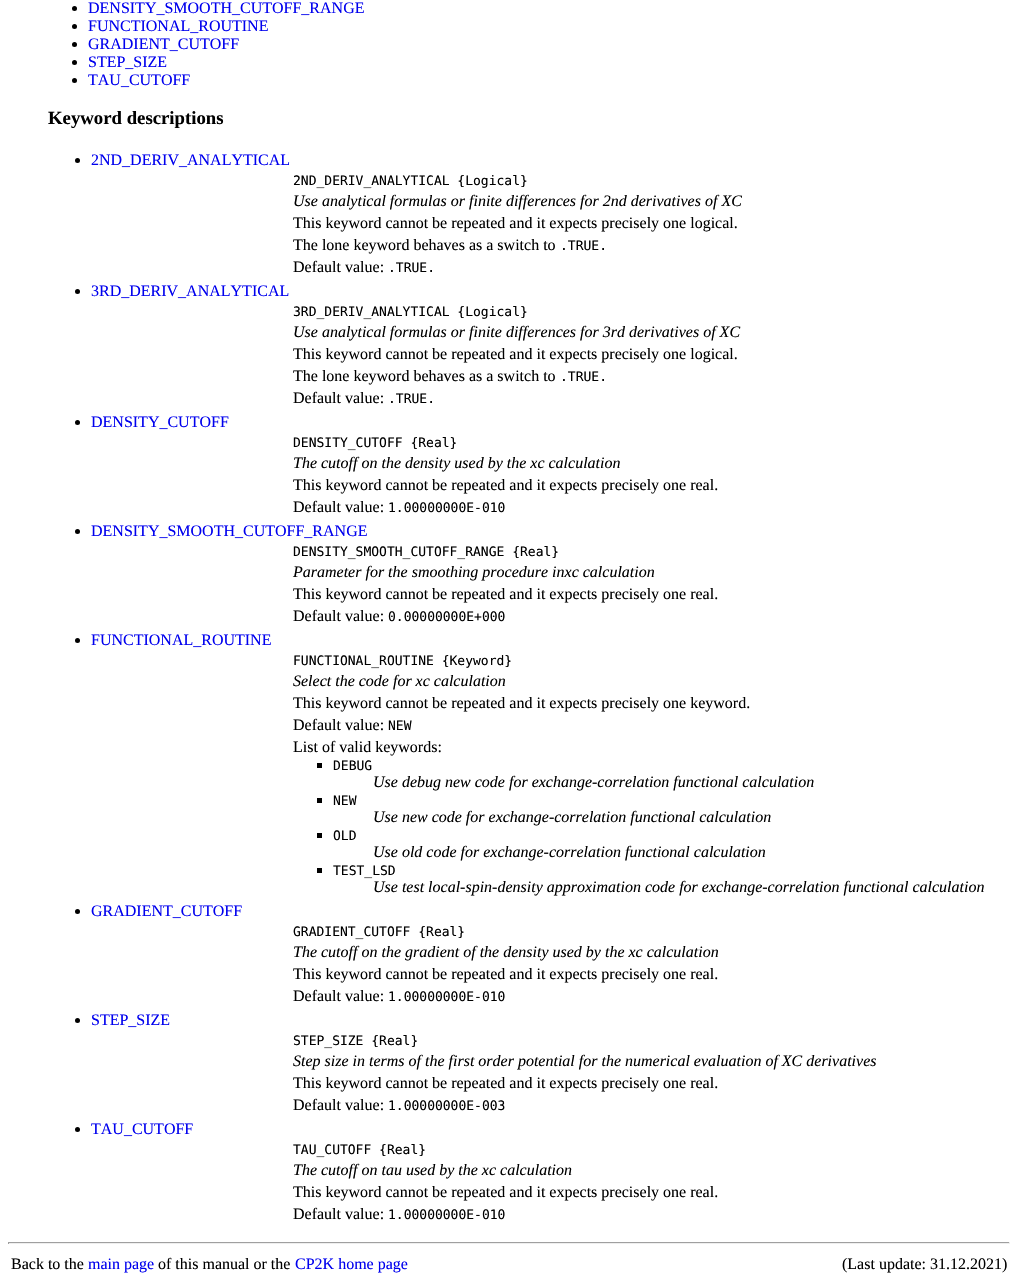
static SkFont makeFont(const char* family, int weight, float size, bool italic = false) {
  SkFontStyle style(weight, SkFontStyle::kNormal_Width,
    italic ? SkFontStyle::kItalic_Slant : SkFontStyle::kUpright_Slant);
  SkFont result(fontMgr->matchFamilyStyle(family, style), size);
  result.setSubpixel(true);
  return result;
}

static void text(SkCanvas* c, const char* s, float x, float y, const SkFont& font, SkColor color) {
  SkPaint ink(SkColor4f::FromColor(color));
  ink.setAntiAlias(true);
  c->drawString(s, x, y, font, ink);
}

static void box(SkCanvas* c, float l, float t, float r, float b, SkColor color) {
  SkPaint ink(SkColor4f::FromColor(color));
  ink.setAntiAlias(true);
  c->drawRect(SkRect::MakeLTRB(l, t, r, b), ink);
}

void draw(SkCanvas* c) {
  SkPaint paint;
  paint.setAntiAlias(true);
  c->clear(0xffffffff);
  paint.setColor(0xff000000);
  c->drawCircle(74.5f, 8.5f, 2.5f, paint);
  SkFont face1 = makeFont("Liberation Serif", 400, 16);
  text(c, "DENSITY_SMOOTH_CUTOFF_RANGE", 88, 13, face1, 0xff0000ee);
  c->drawCircle(74.5f, 26.5f, 2.5f, paint);
  text(c, "FUNCTIONAL_ROUTINE", 88, 31, face1, 0xff0000ee);
  c->drawCircle(74.5f, 44.5f, 2.5f, paint);
  text(c, "GRADIENT_CUTOFF", 88, 49, face1, 0xff0000ee);
  c->drawCircle(74.5f, 62.5f, 2.5f, paint);
  text(c, "STEP_SIZE", 88, 67, face1, 0xff0000ee);
  c->drawCircle(74.5f, 80.5f, 2.5f, paint);
  text(c, "TAU_CUTOFF", 88, 85, face1, 0xff0000ee);
  SkFont face2 = makeFont("Liberation Serif", 700, 18.75f);
  text(c, "Keyword descriptions", 48, 124, face2, 0xff000000);
  c->drawCircle(77.5f, 160.5f, 2.5f, paint);
  text(c, "2ND_DERIV_ANALYTICAL", 91, 165, face1, 0xff0000ee);
  SkFont face3 = makeFont("DejaVu Sans Mono", 400, 13);
  text(c, "2ND_DERIV_ANALYTICAL {Logical}", 293, 185, face3, 0xff000000);
  SkFont face4 = makeFont("Liberation Serif", 400, 16, true);
  text(c, "Use analytical formulas or finite differences for 2nd derivatives of XC", 293, 206, face4, 0xff000000);
  text(c, "This keyword cannot be repeated and it expects precisely one logical.", 293, 228, face1, 0xff000000);
  text(c, "The lone keyword behaves as a switch to", 293, 250, face1, 0xff000000);
  text(c, ".TRUE.", 560, 250, face3, 0xff000000);
  text(c, "Default value:", 293, 272, face1, 0xff000000);
  text(c, ".TRUE.", 388, 272, face3, 0xff000000);
  c->drawCircle(77.5f, 291.5f, 2.5f, paint);
  text(c, "3RD_DERIV_ANALYTICAL", 91, 296, face1, 0xff0000ee);
  text(c, "3RD_DERIV_ANALYTICAL {Logical}", 293, 316, face3, 0xff000000);
  text(c, "Use analytical formulas or finite differences for 3rd derivatives of XC", 293, 337, face4, 0xff000000);
  text(c, "This keyword cannot be repeated and it expects precisely one logical.", 293, 359, face1, 0xff000000);
  text(c, "The lone keyword behaves as a switch to", 293, 381, face1, 0xff000000);
  text(c, ".TRUE.", 560, 381, face3, 0xff000000);
  text(c, "Default value:", 293, 403, face1, 0xff000000);
  text(c, ".TRUE.", 388, 403, face3, 0xff000000);
  c->drawCircle(77.5f, 422.5f, 2.5f, paint);
  text(c, "DENSITY_CUTOFF", 91, 427, face1, 0xff0000ee);
  text(c, "DENSITY_CUTOFF {Real}", 293, 447, face3, 0xff000000);
  text(c, "The cutoff on the density used by the xc calculation", 293, 468, face4, 0xff000000);
  text(c, "This keyword cannot be repeated and it expects precisely one real.", 293, 490, face1, 0xff000000);
  text(c, "Default value:", 293, 512, face1, 0xff000000);
  text(c, "1.00000000E-010", 388, 512, face3, 0xff000000);
  c->drawCircle(77.5f, 531.5f, 2.5f, paint);
  text(c, "DENSITY_SMOOTH_CUTOFF_RANGE", 91, 536, face1, 0xff0000ee);
  text(c, "DENSITY_SMOOTH_CUTOFF_RANGE {Real}", 293, 556, face3, 0xff000000);
  text(c, "Parameter for the smoothing procedure inxc calculation", 293, 577, face4, 0xff000000);
  text(c, "This keyword cannot be repeated and it expects precisely one real.", 293, 599, face1, 0xff000000);
  text(c, "Default value:", 293, 621, face1, 0xff000000);
  text(c, "0.00000000E+000", 388, 621, face3, 0xff000000);
  c->drawCircle(77.5f, 640.5f, 2.5f, paint);
  text(c, "FUNCTIONAL_ROUTINE", 91, 645, face1, 0xff0000ee);
  text(c, "FUNCTIONAL_ROUTINE {Keyword}", 293, 665, face3, 0xff000000);
  text(c, "Select the code for xc calculation", 293, 686, face4, 0xff000000);
  text(c, "This keyword cannot be repeated and it expects precisely one keyword.", 293, 708, face1, 0xff000000);
  text(c, "Default value:", 293, 730, face1, 0xff000000);
  text(c, "NEW", 388, 730, face3, 0xff000000);
  text(c, "List of valid keywords:", 293, 752, face1, 0xff000000);
  box(c, 317, 763, 322, 768, 0xff000000);
  text(c, "DEBUG", 333, 770, face3, 0xff000000);
  text(c, "Use debug new code for exchange-correlation functional calculation", 373, 787, face4, 0xff000000);
  box(c, 317, 798, 322, 803, 0xff000000);
  text(c, "NEW", 333, 805, face3, 0xff000000);
  text(c, "Use new code for exchange-correlation functional calculation", 373, 822, face4, 0xff000000);
  box(c, 317, 833, 322, 838, 0xff000000);
  text(c, "OLD", 333, 840, face3, 0xff000000);
  text(c, "Use old code for exchange-correlation functional calculation", 373, 857, face4, 0xff000000);
  box(c, 317, 868, 322, 873, 0xff000000);
  text(c, "TEST_LSD", 333, 875, face3, 0xff000000);
  text(c, "Use test local-spin-density approximation code for exchange-correlation functional calculation", 373, 892, face4, 0xff000000);
  c->drawCircle(77.5f, 911.5f, 2.5f, paint);
  text(c, "GRADIENT_CUTOFF", 91, 916, face1, 0xff0000ee);
  text(c, "GRADIENT_CUTOFF {Real}", 293, 936, face3, 0xff000000);
  text(c, "The cutoff on the gradient of the density used by the xc calculation", 293, 957, face4, 0xff000000);
  text(c, "This keyword cannot be repeated and it expects precisely one real.", 293, 979, face1, 0xff000000);
  text(c, "Default value:", 293, 1001, face1, 0xff000000);
  text(c, "1.00000000E-010", 388, 1001, face3, 0xff000000);
  c->drawCircle(77.5f, 1020.5f, 2.5f, paint);
  text(c, "STEP_SIZE", 91, 1025, face1, 0xff0000ee);
  text(c, "STEP_SIZE {Real}", 293, 1045, face3, 0xff000000);
  text(c, "Step size in terms of the first order potential for the numerical evaluation of XC derivatives", 293, 1066, face4, 0xff000000);
  text(c, "This keyword cannot be repeated and it expects precisely one real.", 293, 1088, face1, 0xff000000);
  text(c, "Default value:", 293, 1110, face1, 0xff000000);
  text(c, "1.00000000E-003", 388, 1110, face3, 0xff000000);
  c->drawCircle(77.5f, 1129.5f, 2.5f, paint);
  text(c, "TAU_CUTOFF", 91, 1134, face1, 0xff0000ee);
  text(c, "TAU_CUTOFF {Real}", 293, 1154, face3, 0xff000000);
  text(c, "The cutoff on tau used by the xc calculation", 293, 1175, face4, 0xff000000);
  text(c, "This keyword cannot be repeated and it expects precisely one real.", 293, 1197, face1, 0xff000000);
  text(c, "Default value:", 293, 1219, face1, 0xff000000);
  text(c, "1.00000000E-010", 388, 1219, face3, 0xff000000);
  box(c, 8, 1242, 1010, 1243, 0xff9f9f9f);
  box(c, 1009, 1242, 1010, 1244, 0xffeeeeee);
  box(c, 8, 1243, 1010, 1244, 0xffeeeeee);
  box(c, 8, 1242, 9, 1244, 0xff9f9f9f);
  text(c, "Back to the", 11, 1269, face1, 0xff000000);
  text(c, "main page", 88, 1269, face1, 0xff0000ee);
  text(c, "of this manual or the", 158, 1269, face1, 0xff000000);
  text(c, "CP2K home page", 295, 1269, face1, 0xff0000ee);
  text(c, "(Last update: 31.12.2021)", 842, 1269, face1, 0xff000000);
}
